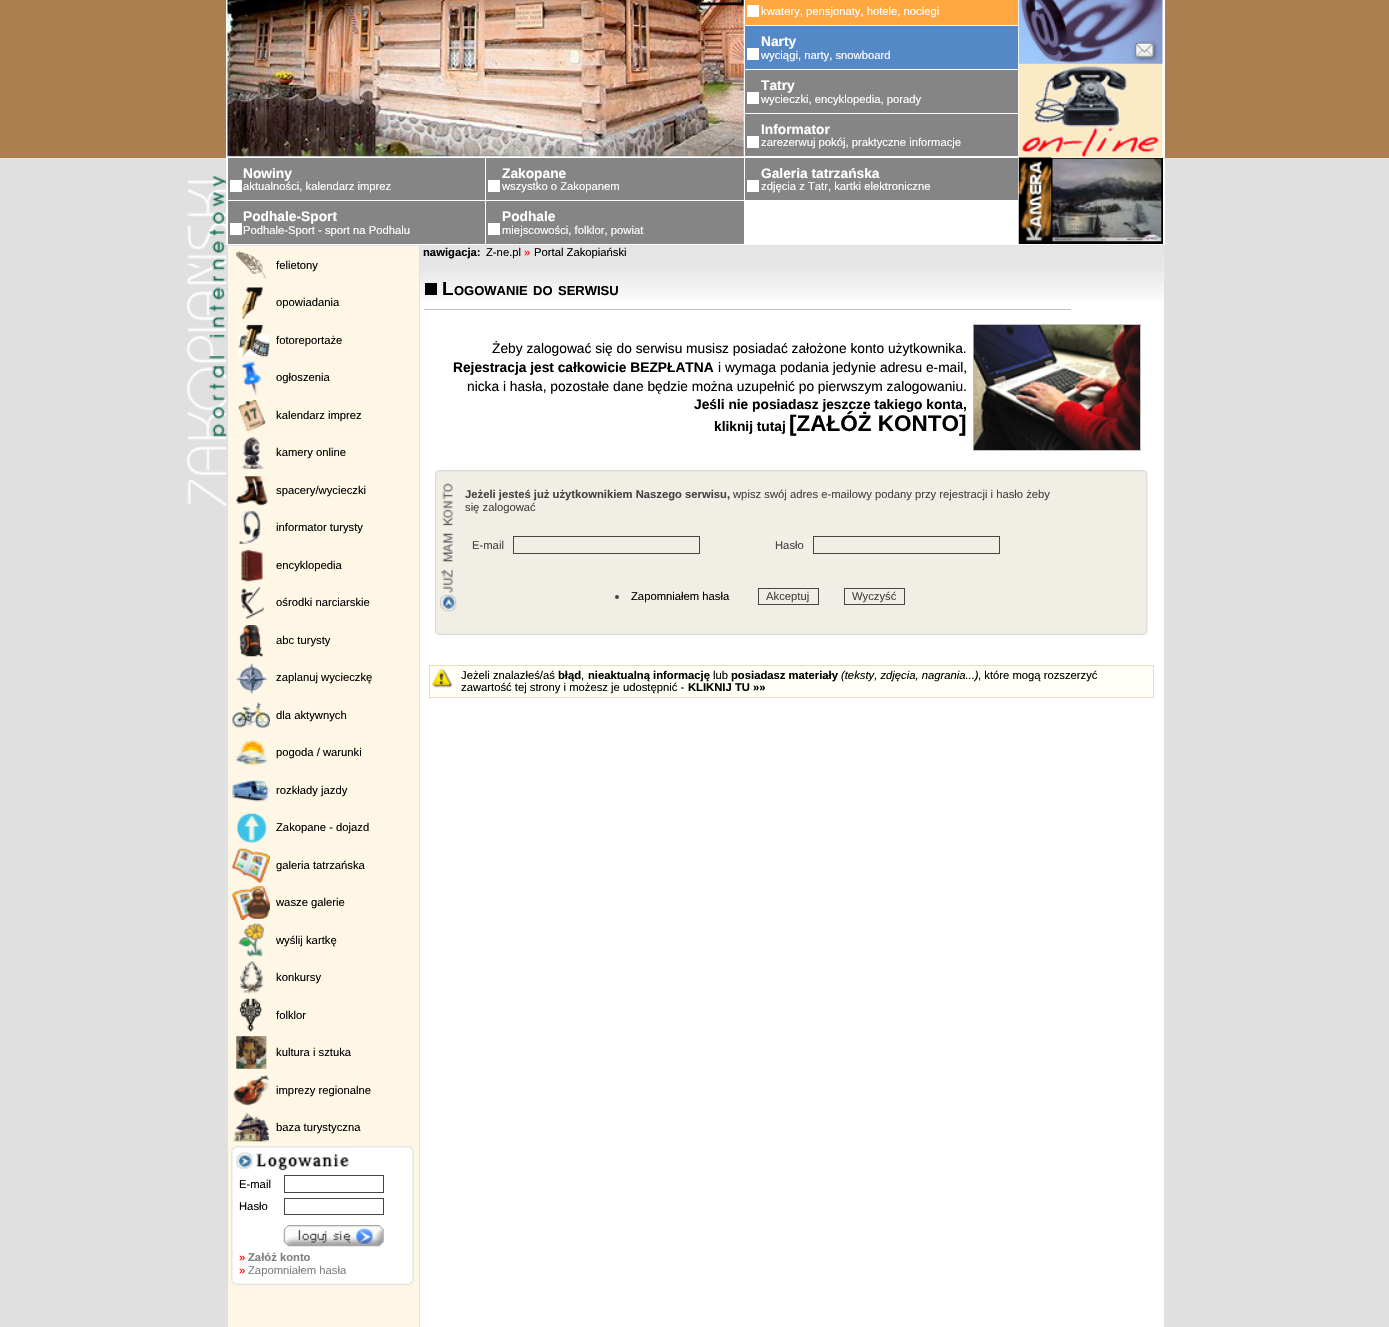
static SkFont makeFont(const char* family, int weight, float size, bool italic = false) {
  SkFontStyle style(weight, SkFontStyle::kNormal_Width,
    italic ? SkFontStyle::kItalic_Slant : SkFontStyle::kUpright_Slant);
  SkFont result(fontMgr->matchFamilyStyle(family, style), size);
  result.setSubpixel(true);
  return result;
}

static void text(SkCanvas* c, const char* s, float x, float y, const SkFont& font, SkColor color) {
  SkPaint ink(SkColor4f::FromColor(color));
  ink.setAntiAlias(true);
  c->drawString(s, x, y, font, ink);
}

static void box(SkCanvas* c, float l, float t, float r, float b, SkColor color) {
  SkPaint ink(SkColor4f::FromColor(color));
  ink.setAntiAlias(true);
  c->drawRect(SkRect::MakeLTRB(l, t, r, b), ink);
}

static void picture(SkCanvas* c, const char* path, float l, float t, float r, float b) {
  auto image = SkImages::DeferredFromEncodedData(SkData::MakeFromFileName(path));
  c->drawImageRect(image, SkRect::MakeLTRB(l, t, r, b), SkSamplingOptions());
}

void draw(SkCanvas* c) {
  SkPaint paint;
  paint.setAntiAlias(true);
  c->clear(0xffe0e0e0);
  box(c, 0, 0, 226, 158, 0xffac7e50);
  picture(c, "img_01.png", 186, 175, 227, 507);
  box(c, 226, 0, 1165, 245, 0xffffffff);
  picture(c, "img_02.png", 227, 0, 744, 157);
  box(c, 745, 0, 1018, 25, 0xffffa740);
  box(c, 747, 5, 759, 17, 0xffffffff);
  SkFont face1 = makeFont("Liberation Sans", 400, 11.25f);
  text(c, "kwatery, pensjonaty, hotele, noclegi", 761, 15, face1, 0xffffffff);
  picture(c, "img_03.png", 1018, 0, 1163, 158);
  box(c, 1019, 158, 1163, 244, 0xff000000);
  picture(c, "img_04.png", 1018, 157, 1052, 244);
  picture(c, "img_05.png", 1052, 158, 1162, 242);
  box(c, 745, 26, 1018, 69, 0xff5488c6);
  box(c, 747, 48, 759, 60, 0xffffffff);
  SkFont face2 = makeFont("Liberation Sans", 700, 13.75f);
  text(c, "Narty", 761, 46, face2, 0xffffffff);
  text(c, "wyciągi, narty, snowboard", 761, 59, face1, 0xffffffff);
  box(c, 745, 70, 1018, 113, 0xff858585);
  box(c, 747, 92, 759, 104, 0xffffffff);
  text(c, "Tatry", 761, 90, face2, 0xffffffff);
  text(c, "wycieczki, encyklopedia, porady", 761, 103, face1, 0xffffffff);
  box(c, 745, 114, 1018, 156, 0xff858585);
  box(c, 747, 136, 759, 148, 0xffffffff);
  text(c, "Informator", 761, 134, face2, 0xffffffff);
  text(c, "zarezerwuj pokój, praktyczne informacje", 761, 146, face1, 0xffffffff);
  box(c, 228, 158, 485, 200, 0xff858585);
  box(c, 230, 180, 242, 192, 0xffffffff);
  text(c, "Nowiny", 243, 178, face2, 0xffffffff);
  text(c, "aktualności, kalendarz imprez", 243, 190, face1, 0xffffffff);
  box(c, 486, 158, 744, 200, 0xff858585);
  box(c, 488, 180, 500, 192, 0xffffffff);
  text(c, "Zakopane", 502, 178, face2, 0xffffffff);
  text(c, "wszystko o Zakopanem", 502, 190, face1, 0xffffffff);
  box(c, 745, 158, 1018, 200, 0xff858585);
  box(c, 747, 180, 759, 192, 0xffffffff);
  text(c, "Galeria tatrzańska", 761, 178, face2, 0xffffffff);
  text(c, "zdjęcia z Tatr, kartki elektroniczne", 761, 190, face1, 0xffffffff);
  box(c, 228, 201, 485, 244, 0xff858585);
  box(c, 230, 223, 242, 235, 0xffffffff);
  text(c, "Podhale-Sport", 243, 221, face2, 0xffffffff);
  text(c, "Podhale-Sport - sport na Podhalu", 243, 234, face1, 0xffffffff);
  box(c, 486, 201, 744, 244, 0xff858585);
  box(c, 488, 223, 500, 235, 0xffffffff);
  text(c, "Podhale", 502, 221, face2, 0xffffffff);
  text(c, "miejscowości, folklor, powiat", 502, 234, face1, 0xffffffff);
  box(c, 228, 246, 419, 1327, 0xfffff7e6);
  picture(c, "img_06.png", 236, 251, 267, 279);
  text(c, "felietony", 276, 269, face1, 0xff000000);
  picture(c, "img_07.png", 242, 287, 263, 319);
  text(c, "opowiadania", 276, 306, face1, 0xff000000);
  picture(c, "img_08.png", 238, 324, 270, 357);
  text(c, "fotoreportaże", 276, 344, face1, 0xff000000);
  picture(c, "img_09.png", 241, 361, 262, 395);
  text(c, "ogłoszenia", 276, 381, face1, 0xff000000);
  picture(c, "img_10.png", 238, 400, 266, 432);
  text(c, "kalendarz imprez", 276, 419, face1, 0xff000000);
  picture(c, "img_11.png", 241, 437, 264, 469);
  text(c, "kamery online", 276, 456, face1, 0xff000000);
  picture(c, "img_12.png", 236, 476, 268, 506);
  text(c, "spacery/wycieczki", 276, 494, face1, 0xff000000);
  picture(c, "img_13.png", 238, 511, 261, 544);
  text(c, "informator turysty", 276, 531, face1, 0xff000000);
  picture(c, "img_14.png", 241, 550, 263, 582);
  text(c, "encyklopedia", 276, 569, face1, 0xff000000);
  picture(c, "img_15.png", 241, 587, 264, 619);
  text(c, "ośrodki narciarskie", 276, 606, face1, 0xff000000);
  picture(c, "img_16.png", 239, 625, 263, 657);
  text(c, "abc turysty", 276, 644, face1, 0xff000000);
  picture(c, "img_17.png", 236, 663, 268, 694);
  text(c, "zaplanuj wycieczkę", 276, 681, face1, 0xff000000);
  picture(c, "img_18.png", 232, 702, 270, 728);
  text(c, "dla aktywnych", 276, 719, face1, 0xff000000);
  picture(c, "img_19.png", 236, 740, 268, 766);
  text(c, "pogoda / warunki", 276, 756, face1, 0xff000000);
  picture(c, "img_20.png", 232, 780, 270, 802);
  text(c, "rozkłady jazdy", 276, 794, face1, 0xff000000);
  picture(c, "img_21.png", 237, 813, 267, 843);
  text(c, "Zakopane - dojazd", 276, 831, face1, 0xff000000);
  picture(c, "img_22.png", 232, 848, 270, 883);
  text(c, "galeria tatrzańska", 276, 869, face1, 0xff000000);
  picture(c, "img_23.png", 232, 886, 270, 920);
  text(c, "wasze galerie", 276, 906, face1, 0xff000000);
  picture(c, "img_24.png", 238, 923, 264, 957);
  text(c, "wyślij kartkę", 276, 944, face1, 0xff000000);
  picture(c, "img_25.png", 239, 961, 264, 994);
  text(c, "konkursy", 276, 981, face1, 0xff000000);
  picture(c, "img_26.png", 239, 998, 262, 1032);
  text(c, "folklor", 276, 1019, face1, 0xff000000);
  picture(c, "img_27.png", 236, 1036, 267, 1069);
  text(c, "kultura i sztuka", 276, 1056, face1, 0xff000000);
  picture(c, "img_28.png", 233, 1075, 269, 1106);
  text(c, "imprezy regionalne", 276, 1094, face1, 0xff000000);
  picture(c, "img_29.png", 233, 1112, 269, 1142);
  text(c, "baza turystyczna", 276, 1131, face1, 0xff000000);
  picture(c, "img_30.png", 231, 1146, 414, 1151);
  picture(c, "img_31.png", 231, 1151, 414, 1280);
  picture(c, "img_32.png", 235, 1151, 351, 1171);
  text(c, "E-mail", 239, 1188, face1, 0xff000000);
  paint.setStyle(SkPaint::kStroke_Style);
  paint.setStrokeWidth(1);
  paint.setColor(0xff454545);
  c->drawRect(SkRect::MakeLTRB(284.5f, 1175.5f, 383.5f, 1192.5f), paint);
  text(c, "Hasło", 239, 1210, face1, 0xff000000);
  c->drawRect(SkRect::MakeLTRB(284.5f, 1198.5f, 383.5f, 1214.5f), paint);
  picture(c, "img_33.png", 283, 1225, 384, 1247);
  text(c, "»", 239, 1261, face1, 0xffff0000);
  SkFont face3 = makeFont("Liberation Sans", 700, 11.25f);
  text(c, "Załóż konto", 248, 1261, face3, 0xff808080);
  text(c, "»", 239, 1274, face1, 0xffff0000);
  text(c, "Zapomniałem hasła", 248, 1274, face1, 0xff808080);
  picture(c, "img_34.png", 231, 1280, 414, 1285);
  box(c, 420, 259, 1164, 1327, 0xffffffff);
  box(c, 420, 246, 1164, 259, 0xffe5e5e5);
  text(c, "nawigacja:", 423, 256, face3, 0xff000000);
  text(c, "Z-ne.pl", 486, 256, face1, 0xff000000);
  text(c, "»", 524, 256, face1, 0xffff0000);
  text(c, "Portal Zakopiański", 534, 256, face1, 0xff000000);
  picture(c, "img_35.png", 420, 259, 1164, 301);
  box(c, 425, 283, 437, 295, 0xff000000);
  SkFont face4 = makeFont("Liberation Sans", 700, 19);
  text(c, "L", 442, 295, face4, 0xff000000);
  SkFont face5 = makeFont("Liberation Sans", 700, 13);
  text(c, "OGOWANIE", 454, 295, face5, 0xff000000);
  text(c, "DO", 533, 295, face5, 0xff000000);
  text(c, "SERWISU", 558, 295, face5, 0xff000000);
  box(c, 424, 309, 1071, 310, 0xffc0c0c0);
  SkFont face6 = makeFont("Liberation Sans", 400, 13.75f);
  text(c, "Żeby zalogować się do serwisu musisz posiadać założone konto użytkownika.", 492, 353, face6, 0xff000000);
  text(c, "Rejestracja jest całkowicie BEZPŁATNA", 453, 372, face2, 0xff000000);
  text(c, "i wymaga podania jedynie adresu e-mail,", 718, 372, face6, 0xff000000);
  text(c, "nicka i hasła, pozostałe dane będzie można uzupełnić po pierwszym zalogowaniu.", 467, 391, face6, 0xff000000);
  text(c, "Jeśli nie posiadasz jeszcze takiego konta,", 694, 409, face2, 0xff000000);
  text(c, "kliknij tutaj", 714, 431, face2, 0xff000000);
  SkFont face7 = makeFont("Liberation Sans", 700, 22.5f);
  text(c, "[ZAŁÓŻ KONTO]", 789, 431, face7, 0xff000000);
  paint.setColor(0xffc0c0c0);
  c->drawRect(SkRect::MakeLTRB(973.5f, 324.5f, 1140.5f, 450.5f), paint);
  picture(c, "img_36.png", 973, 325, 1140, 450);
  picture(c, "img_37.png", 435, 470, 1148, 475);
  picture(c, "img_38.png", 435, 475, 1148, 630);
  picture(c, "img_39.png", 440, 483, 457, 612);
  text(c, "Jeżeli jesteś już użytkownikiem Naszego serwisu,", 465, 498, face3, 0xff434343);
  text(c, "wpisz swój adres e-mailowy podany przy rejestracji i hasło żeby", 733, 498, face1, 0xff434343);
  text(c, "się zalogować", 465, 511, face1, 0xff434343);
  text(c, "E-mail", 472, 549, face1, 0xff434343);
  paint.setColor(0xff454545);
  c->drawRect(SkRect::MakeLTRB(513.5f, 536.5f, 699.5f, 553.5f), paint);
  text(c, "Hasło", 775, 549, face1, 0xff434343);
  c->drawRect(SkRect::MakeLTRB(813.5f, 536.5f, 999.5f, 553.5f), paint);
  paint.setStyle(SkPaint::kFill_Style);
  paint.setColor(0xff434343);
  c->drawCircle(617, 597, 2, paint);
  text(c, "Zapomniałem hasła", 631, 600, face1, 0xff000000);
  paint.setStyle(SkPaint::kStroke_Style);
  paint.setColor(0xff454545);
  c->drawRect(SkRect::MakeLTRB(758.5f, 588.5f, 818.5f, 604.5f), paint);
  text(c, "Akceptuj", 766, 600, face1, 0xff434343);
  c->drawRect(SkRect::MakeLTRB(844.5f, 588.5f, 904.5f, 604.5f), paint);
  text(c, "Wyczyść", 852, 600, face1, 0xff434343);
  picture(c, "img_40.png", 435, 630, 1148, 635);
  paint.setStyle(SkPaint::kFill_Style);
  paint.setColor(0xfffffff7);
  c->drawRect(SkRect::MakeLTRB(429.5f, 665.5f, 1153.5f, 697.5f), paint);
  paint.setStyle(SkPaint::kStroke_Style);
  paint.setColor(0xffe5ddbc);
  c->drawRect(SkRect::MakeLTRB(429.5f, 665.5f, 1153.5f, 697.5f), paint);
  picture(c, "img_41.png", 432, 668, 453, 688);
  text(c, "Jeżeli znalazłeś/aś", 461, 679, face1, 0xff000000);
  text(c, "błąd", 558, 679, face3, 0xff000000);
  text(c, ",", 581, 679, face1, 0xff000000);
  text(c, "nieaktualną informację", 588, 679, face3, 0xff000000);
  text(c, "lub", 713, 679, face1, 0xff000000);
  text(c, "posiadasz materiały", 731, 679, face3, 0xff000000);
  SkFont face8 = makeFont("Liberation Sans", 400, 11.25f, true);
  text(c, "(teksty, zdjęcia, nagrania...)", 841, 679, face8, 0xff000000);
  text(c, ", które mogą rozszerzyć", 978, 679, face1, 0xff000000);
  text(c, "zawartość tej strony i możesz je udostępnić -", 461, 691, face1, 0xff000000);
  text(c, "KLIKNIJ TU »»", 688, 691, face3, 0xff000000);
  box(c, 1165, 0, 1389, 158, 0xffac7e50);
}
